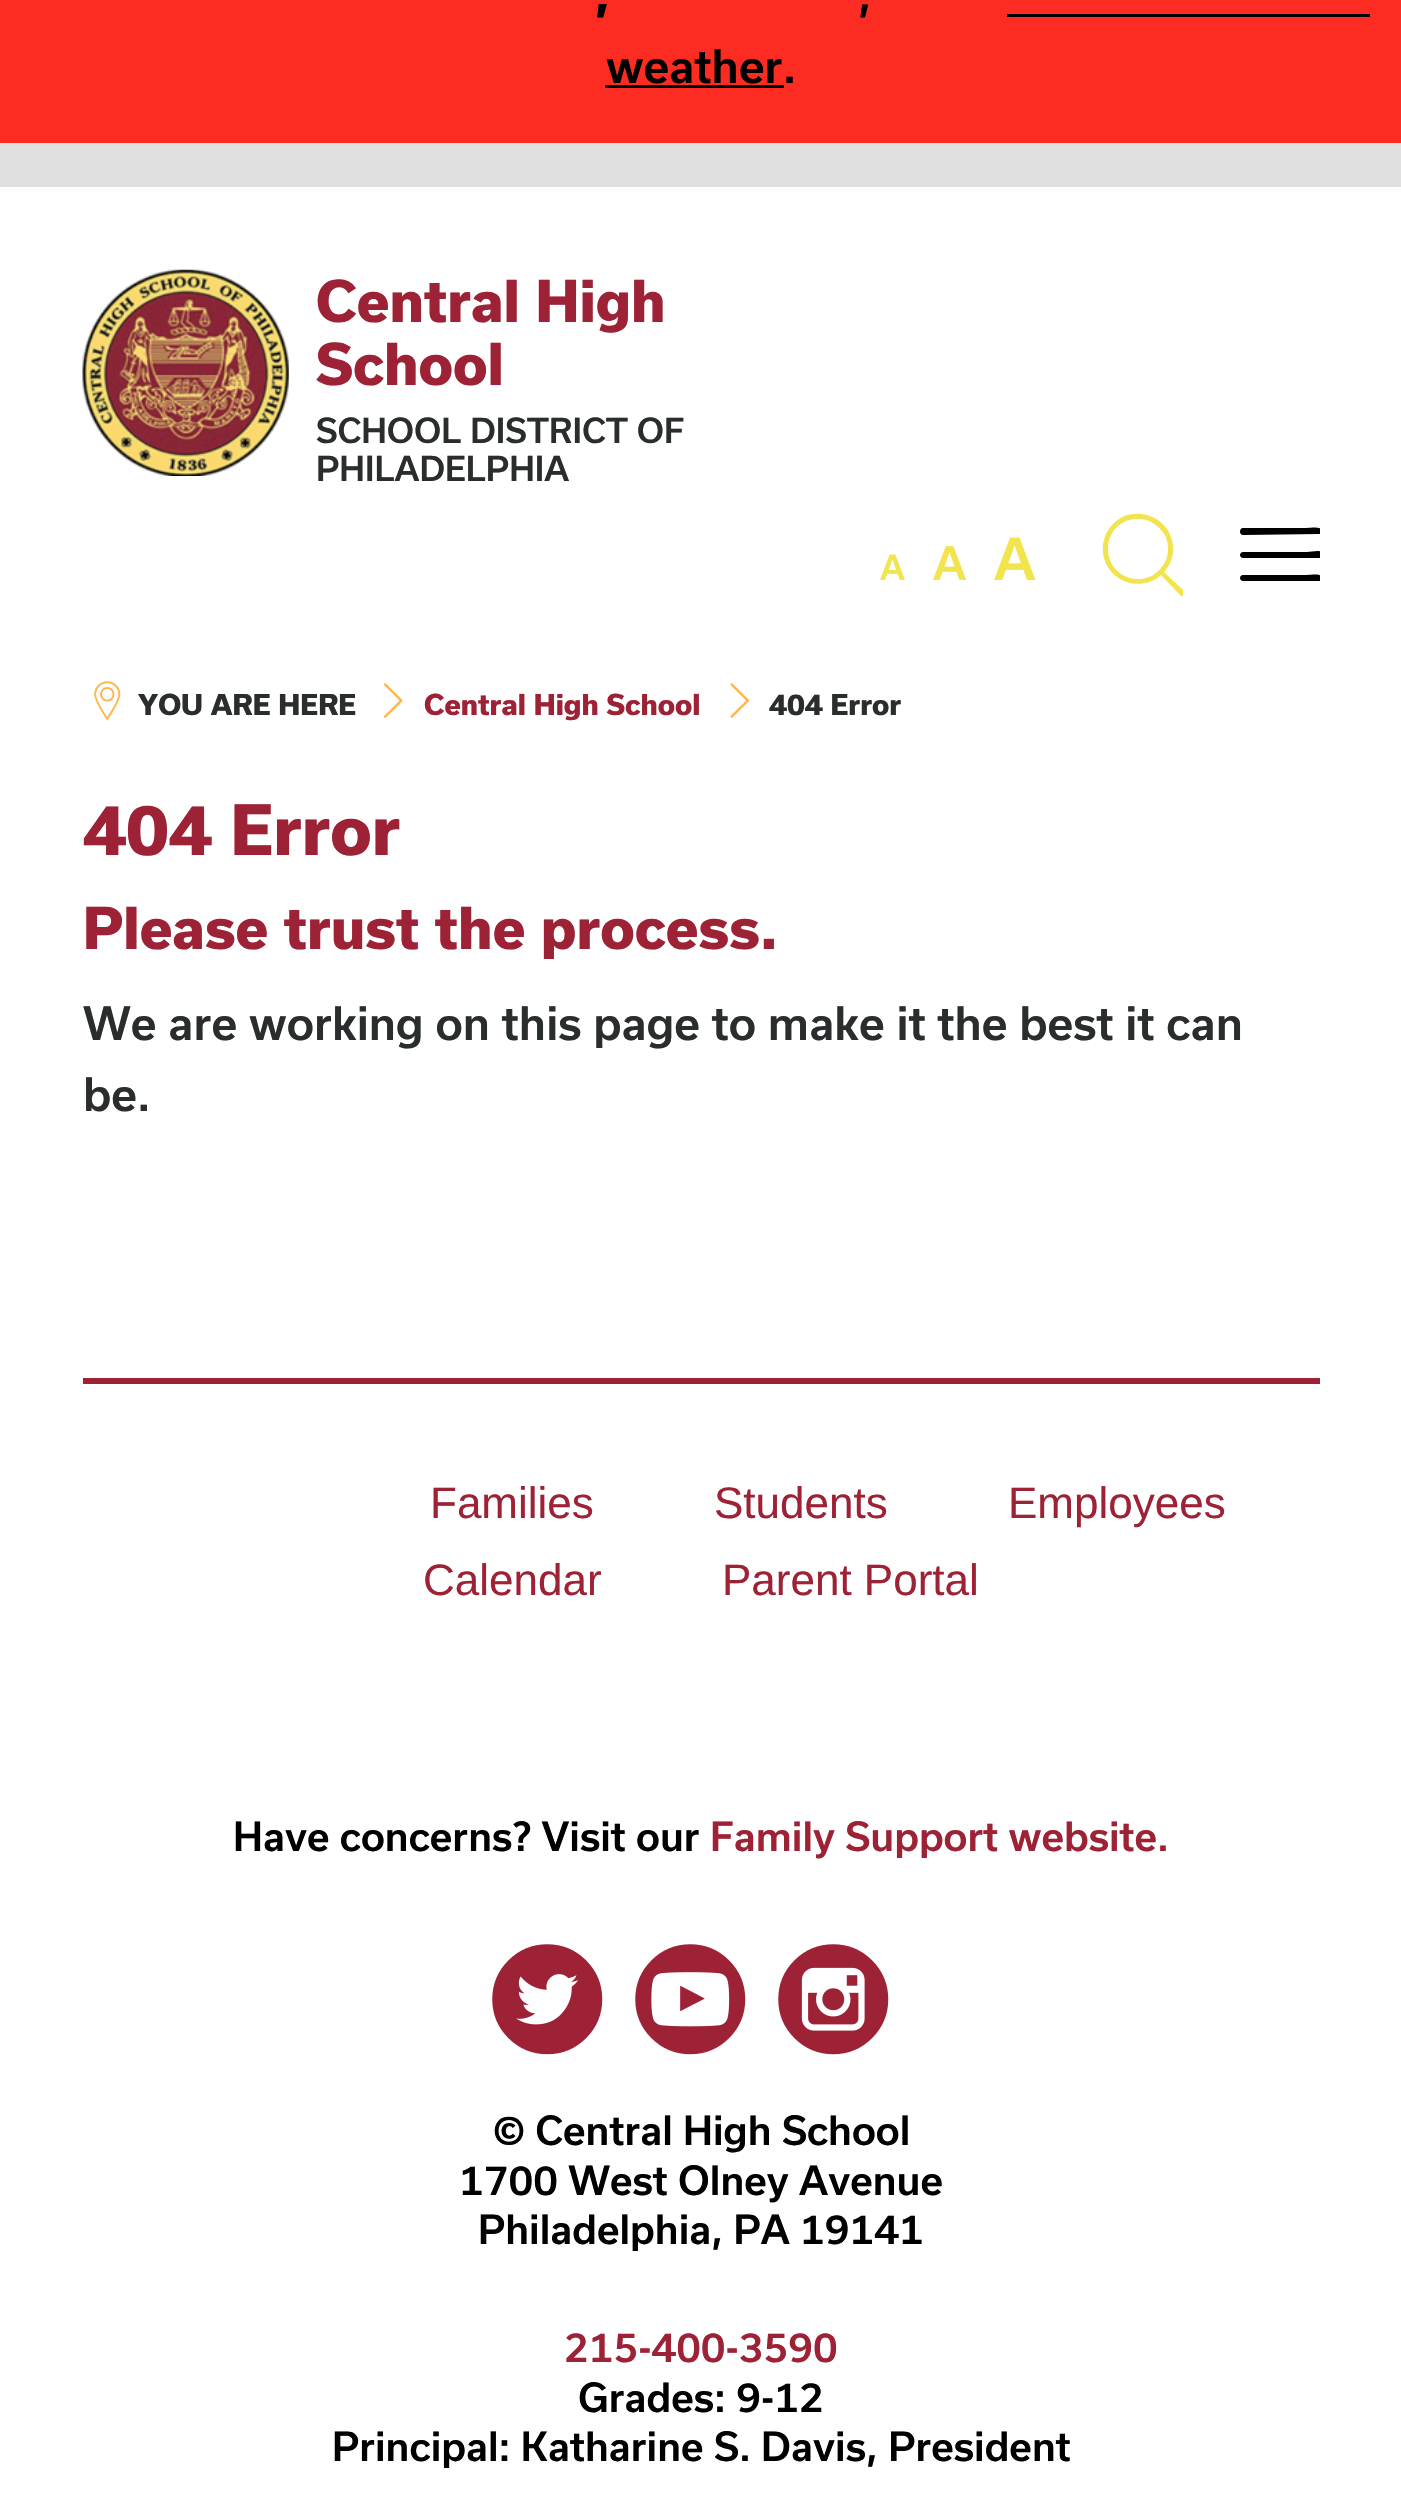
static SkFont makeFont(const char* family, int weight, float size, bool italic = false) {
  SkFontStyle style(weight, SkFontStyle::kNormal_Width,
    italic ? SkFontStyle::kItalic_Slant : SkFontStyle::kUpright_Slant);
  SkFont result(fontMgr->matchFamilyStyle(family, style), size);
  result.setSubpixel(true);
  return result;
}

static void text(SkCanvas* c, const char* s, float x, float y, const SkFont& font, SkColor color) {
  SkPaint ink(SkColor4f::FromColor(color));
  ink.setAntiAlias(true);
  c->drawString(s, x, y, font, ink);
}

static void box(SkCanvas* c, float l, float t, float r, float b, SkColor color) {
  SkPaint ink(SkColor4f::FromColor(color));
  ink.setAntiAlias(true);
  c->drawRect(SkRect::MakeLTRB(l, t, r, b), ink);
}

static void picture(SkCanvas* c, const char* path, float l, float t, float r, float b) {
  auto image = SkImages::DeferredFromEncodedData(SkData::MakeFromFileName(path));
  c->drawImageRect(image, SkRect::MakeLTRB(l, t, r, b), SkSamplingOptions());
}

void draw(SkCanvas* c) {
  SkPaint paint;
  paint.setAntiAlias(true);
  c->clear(0xffffffff);
  box(c, 0, 0, 1401, 143, 0xfffd2c22);
  SkFont face1 = makeFont("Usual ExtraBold", 800, 44);
  text(c, ",", 595, 11, face1, 0xff000000);
  SkFont face2 = makeFont("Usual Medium", 500, 44);
  text(c, ",", 858, 11, face2, 0xff000000);
  text(c, "weather.", 606, 83, face2, 0xff000000);
  box(c, 1007, 14, 1370, 17, 0xff000000);
  box(c, 605, 85, 784, 88, 0xff000000);
  box(c, 0, 143, 1401, 187, 0xffe0e0e0);
  picture(c, "img_01.png", 82, 269, 289, 476);
  SkFont face3 = makeFont("Usual ExtraBold", 800, 55);
  text(c, "Central High", 316, 322, face3, 0xff9d2235);
  text(c, "School", 316, 385, face3, 0xff9d2235);
  SkFont face4 = makeFont("Usual Medium", 500, 33);
  text(c, "SCHOOL DISTRICT OF", 316, 443, face4, 0xff292d2e);
  text(c, "PHILADELPHIA", 316, 481, face4, 0xff292d2e);
  text(c, "A", 880, 580, face4, 0xfff2e44d);
  text(c, "A", 933, 580, face2, 0xfff2e44d);
  SkFont face5 = makeFont("Usual Medium", 500, 55);
  text(c, "A", 994, 580, face5, 0xfff2e44d);
  c->save();
  c->clipRect(SkRect::MakeLTRB(1100, 501, 1183, 611));
  paint.setColor(0xfff2e44d);
  c->drawPath(SkPathBuilder().moveTo(1185, 592).cubicTo(1187, 594, 1184, 597, 1181, 596).lineTo(1161, 575).cubicTo(1137, 596, 1100, 577, 1103, 545).cubicTo(1104, 537, 1107, 530, 1113, 524).cubicTo(1119, 518, 1126, 514, 1134, 514).cubicTo(1166, 511, 1186, 548, 1164, 572).close().moveTo(1108, 549).cubicTo(1108, 577, 1143, 590, 1161, 568).cubicTo(1166, 562, 1168, 556, 1168, 549).cubicTo(1168, 542, 1166, 535, 1161, 530).cubicTo(1143, 508, 1108, 520, 1108, 549).close().detach(), paint);
  c->restore();
  c->save();
  c->clipRect(SkRect::MakeLTRB(1238, 501, 1320, 611));
  paint.setColor(0xff000000);
  c->drawPath(SkPathBuilder().moveTo(1243, 535).cubicTo(1239, 535, 1239, 528, 1243, 528).lineTo(1307, 528).cubicTo(1311, 528, 1322, 526, 1323, 531).lineTo(1322, 533).lineTo(1320, 534).close().moveTo(1243, 558).cubicTo(1239, 558, 1239, 552, 1243, 552).lineTo(1307, 552).cubicTo(1312, 552, 1322, 549, 1323, 554).cubicTo(1323, 556, 1322, 558, 1320, 558).close().moveTo(1243, 581).cubicTo(1239, 581, 1239, 575, 1243, 575).lineTo(1307, 575).cubicTo(1312, 575, 1322, 573, 1323, 578).cubicTo(1323, 580, 1322, 581, 1320, 581).close().detach(), paint);
  c->restore();
  picture(c, "img_02.png", 94, 681, 121, 720);
  SkFont face6 = makeFont("Usual ExtraBold", 800, 27.5f);
  text(c, "YOU ARE HERE", 138, 715, face6, 0xff292d2e);
  picture(c, "img_03.png", 383, 683, 403, 718);
  text(c, "Central High School", 424, 715, face6, 0xff9d2235);
  picture(c, "img_04.png", 730, 683, 750, 718);
  text(c, "404 Error", 769, 715, face6, 0xff292d2e);
  SkFont face7 = makeFont("Usual ExtraBold", 800, 66);
  text(c, "404 Error", 83, 855, face7, 0xff9d2235);
  text(c, "Please trust the process.", 83, 949, face3, 0xff9d2235);
  text(c, "We are working on this page to make it the best it can", 83, 1040, face2, 0xff292d2e);
  text(c, "be.", 83, 1111, face2, 0xff292d2e);
  box(c, 83, 1378, 1320, 1384, 0xff9d2235);
  SkFont face8 = makeFont("Liberation Sans", 400, 44);
  text(c, "Families", 430, 1518, face8, 0xff9d2235);
  text(c, "Students", 714, 1518, face8, 0xff9d2235);
  text(c, "Employees", 1008, 1518, face8, 0xff9d2235);
  text(c, "Calendar", 423, 1595, face8, 0xff9d2235);
  text(c, "Parent Portal", 722, 1595, face8, 0xff9d2235);
  SkFont face9 = makeFont("Usual Medium", 500, 38.5f);
  text(c, "Have concerns? Visit our", 233, 1851, face9, 0xff000000);
  text(c, "Family Support website.", 710, 1851, face9, 0xff9d2235);
  picture(c, "img_05.png", 492, 1944, 603, 2055);
  picture(c, "img_06.png", 635, 1944, 746, 2055);
  picture(c, "img_07.png", 778, 1944, 889, 2055);
  text(c, "© Central High School", 493, 2145, face9, 0xff000000);
  text(c, "1700 West Olney Avenue", 459, 2195, face9, 0xff000000);
  text(c, "Philadelphia, PA 19141", 478, 2244, face9, 0xff000000);
  text(c, "215-400-3590", 564, 2362, face9, 0xff9d2235);
  text(c, "Grades: 9-12", 578, 2412, face9, 0xff000000);
  text(c, "Principal: Katharine S. Davis, President", 332, 2461, face9, 0xff000000);
}
